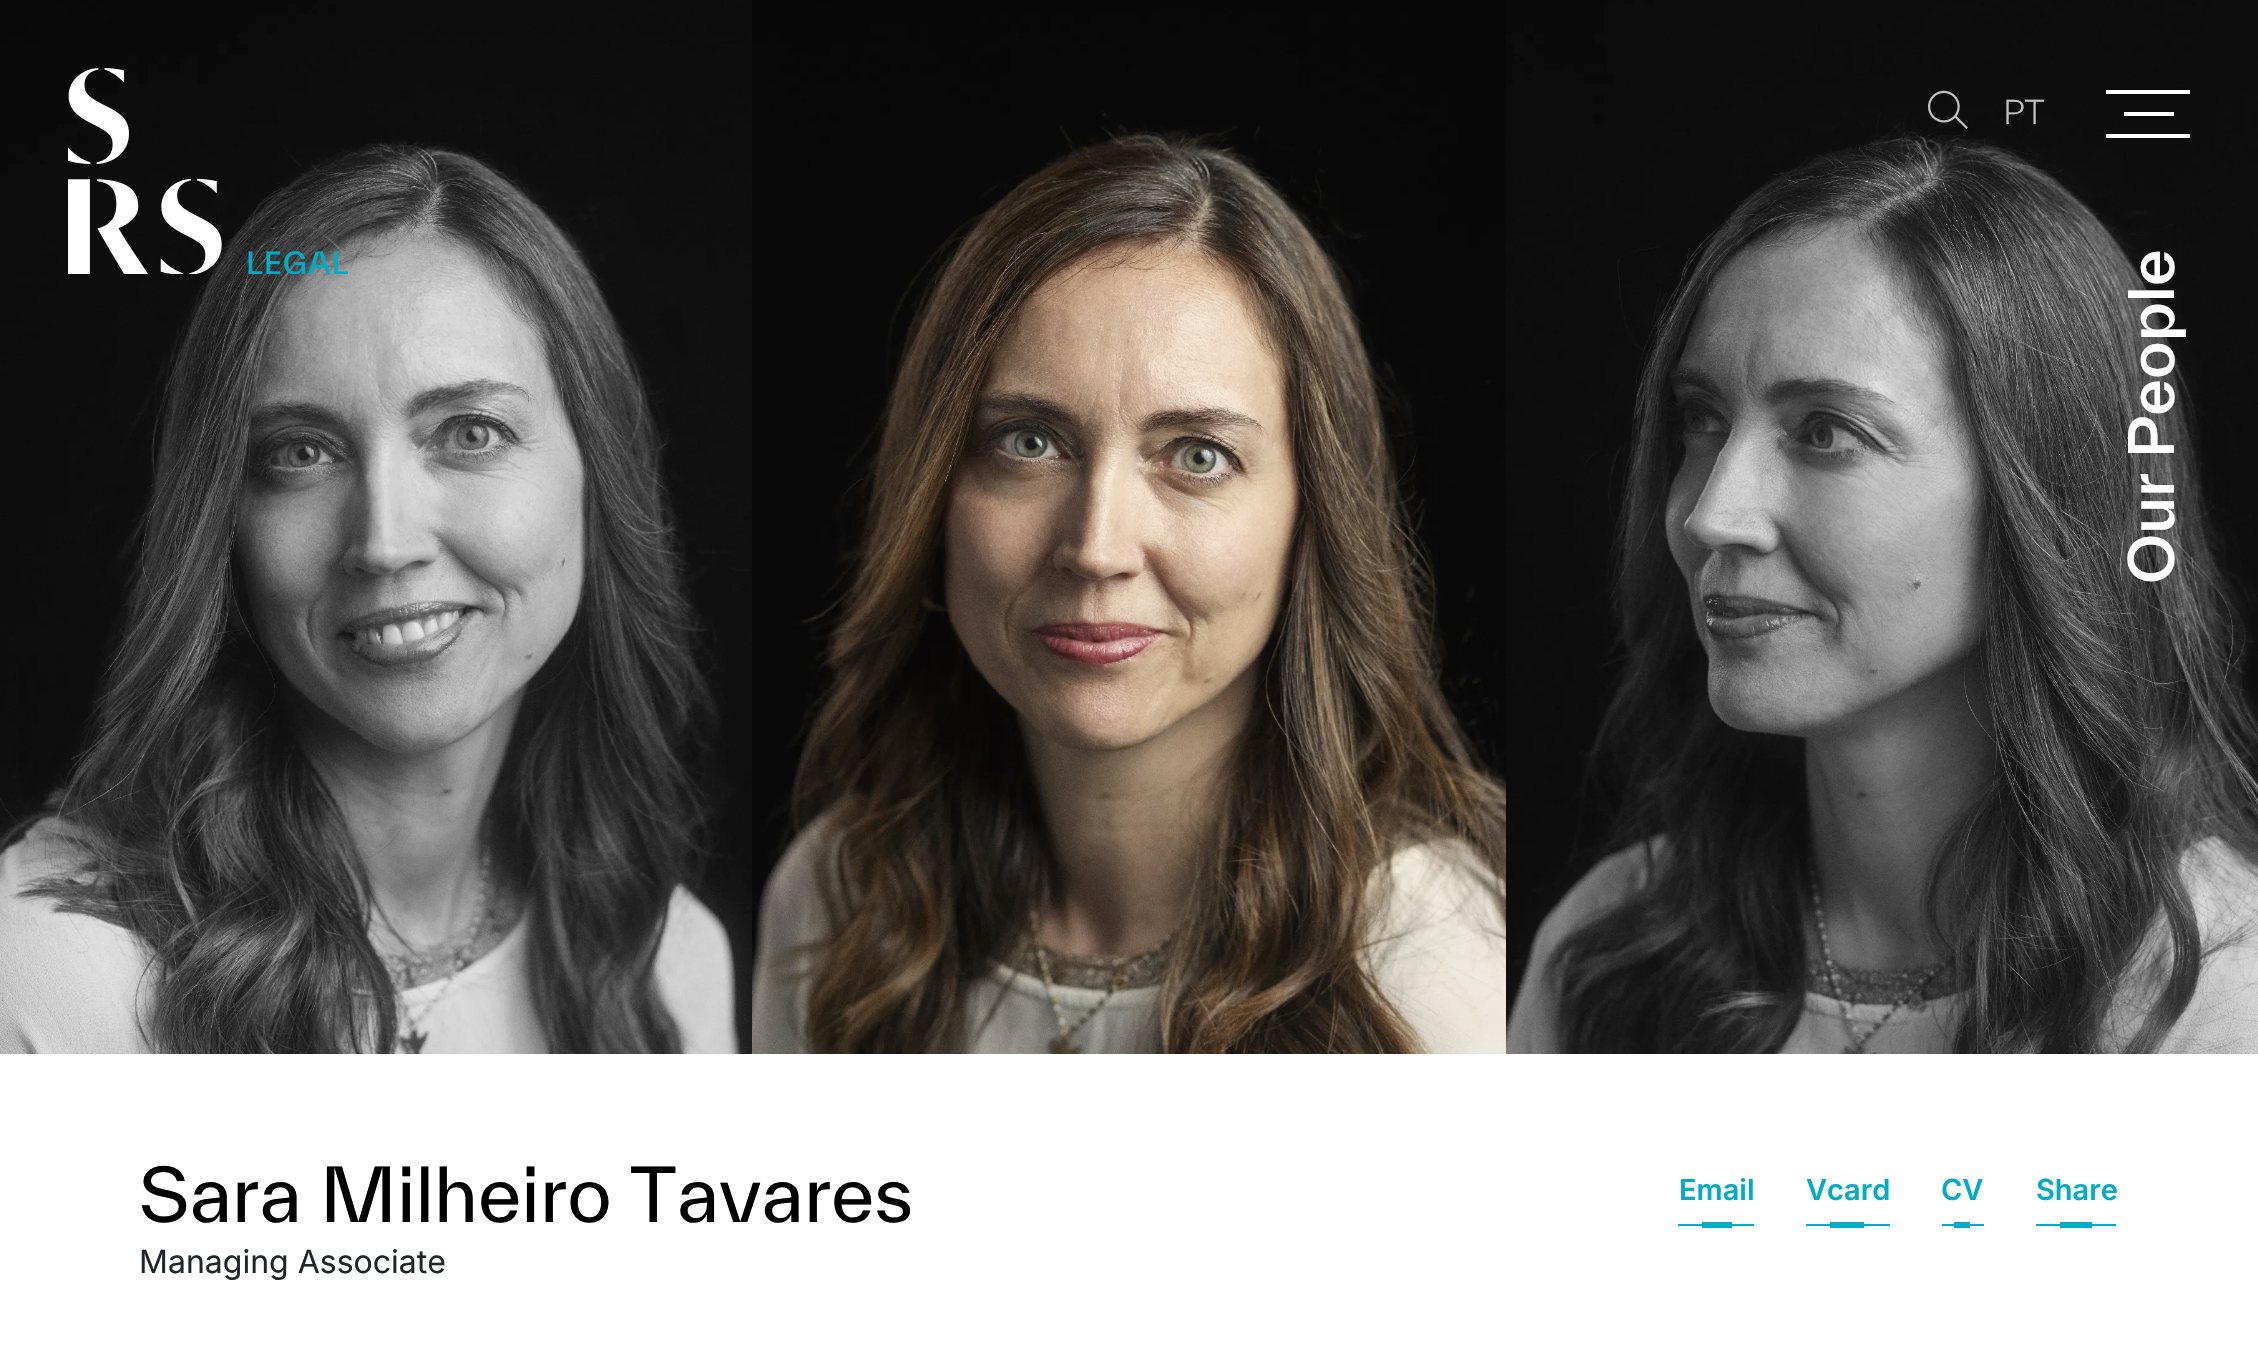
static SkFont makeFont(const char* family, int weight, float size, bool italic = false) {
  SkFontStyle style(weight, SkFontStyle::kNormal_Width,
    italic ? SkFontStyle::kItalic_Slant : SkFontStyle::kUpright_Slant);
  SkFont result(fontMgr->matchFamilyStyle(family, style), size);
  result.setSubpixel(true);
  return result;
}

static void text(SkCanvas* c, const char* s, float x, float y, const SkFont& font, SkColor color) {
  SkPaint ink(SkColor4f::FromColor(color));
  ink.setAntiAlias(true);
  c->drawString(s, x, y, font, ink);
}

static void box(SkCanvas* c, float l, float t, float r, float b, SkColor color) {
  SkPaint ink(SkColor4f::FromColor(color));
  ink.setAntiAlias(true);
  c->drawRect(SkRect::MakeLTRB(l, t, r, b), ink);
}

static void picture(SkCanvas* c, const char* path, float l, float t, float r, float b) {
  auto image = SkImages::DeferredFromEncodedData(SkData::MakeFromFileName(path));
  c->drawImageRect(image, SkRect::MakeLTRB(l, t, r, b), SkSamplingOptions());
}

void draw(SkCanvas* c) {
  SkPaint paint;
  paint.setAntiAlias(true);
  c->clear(0xffffffff);
  picture(c, "img_01.png", 0, 0, 752, 1054);
  picture(c, "img_02.png", 752, 0, 1506, 1054);
  picture(c, "img_03.png", 1506, 0, 2258, 1054);
  picture(c, "img_04.png", 1928, 90, 1968, 129);
  SkFont face1 = makeFont("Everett", 300, 35);
  text(c, "PT", 2003, 124, face1, 0xffc3c3c3);
  box(c, 2106, 90, 2190, 94, 0xffffffff);
  box(c, 2124, 112, 2174, 116, 0xffffffff);
  box(c, 2106, 134, 2190, 138, 0xffffffff);
  picture(c, "img_05.png", 68, 68, 348, 274);
  SkFont face2 = makeFont("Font", 500, 60.5f);
  c->save();
  c->rotate(-90, 2174, 584);
  text(c, "Our People", 2174, 584, face2, 0xffffffff);
  c->restore();
  SkFont face3 = makeFont("Font", 400, 73);
  text(c, "Sara Milheiro Tavares", 139, 1222, face3, 0xff000000);
  SkFont face4 = makeFont("Inter", 400, 32);
  text(c, "Managing Associate", 139, 1273, face4, 0xff212529);
  SkFont face5 = makeFont("Inter", 600, 29);
  text(c, "Email", 1679, 1200, face5, 0xff00acc8);
  box(c, 1678, 1224, 1754, 1226, 0xff00acc8);
  box(c, 1702, 1222, 1732, 1228, 0xff00acc8);
  text(c, "Vcard", 1806, 1200, face5, 0xff00acc8);
  box(c, 1806, 1224, 1890, 1226, 0xff00acc8);
  box(c, 1830, 1222, 1864, 1228, 0xff00acc8);
  text(c, "CV", 1941, 1200, face5, 0xff00acc8);
  box(c, 1942, 1224, 1984, 1226, 0xff00acc8);
  box(c, 1954, 1222, 1970, 1228, 0xff00acc8);
  text(c, "Share", 2036, 1200, face5, 0xff00acc8);
  box(c, 2036, 1224, 2116, 1226, 0xff00acc8);
  box(c, 2060, 1222, 2092, 1228, 0xff00acc8);
}
